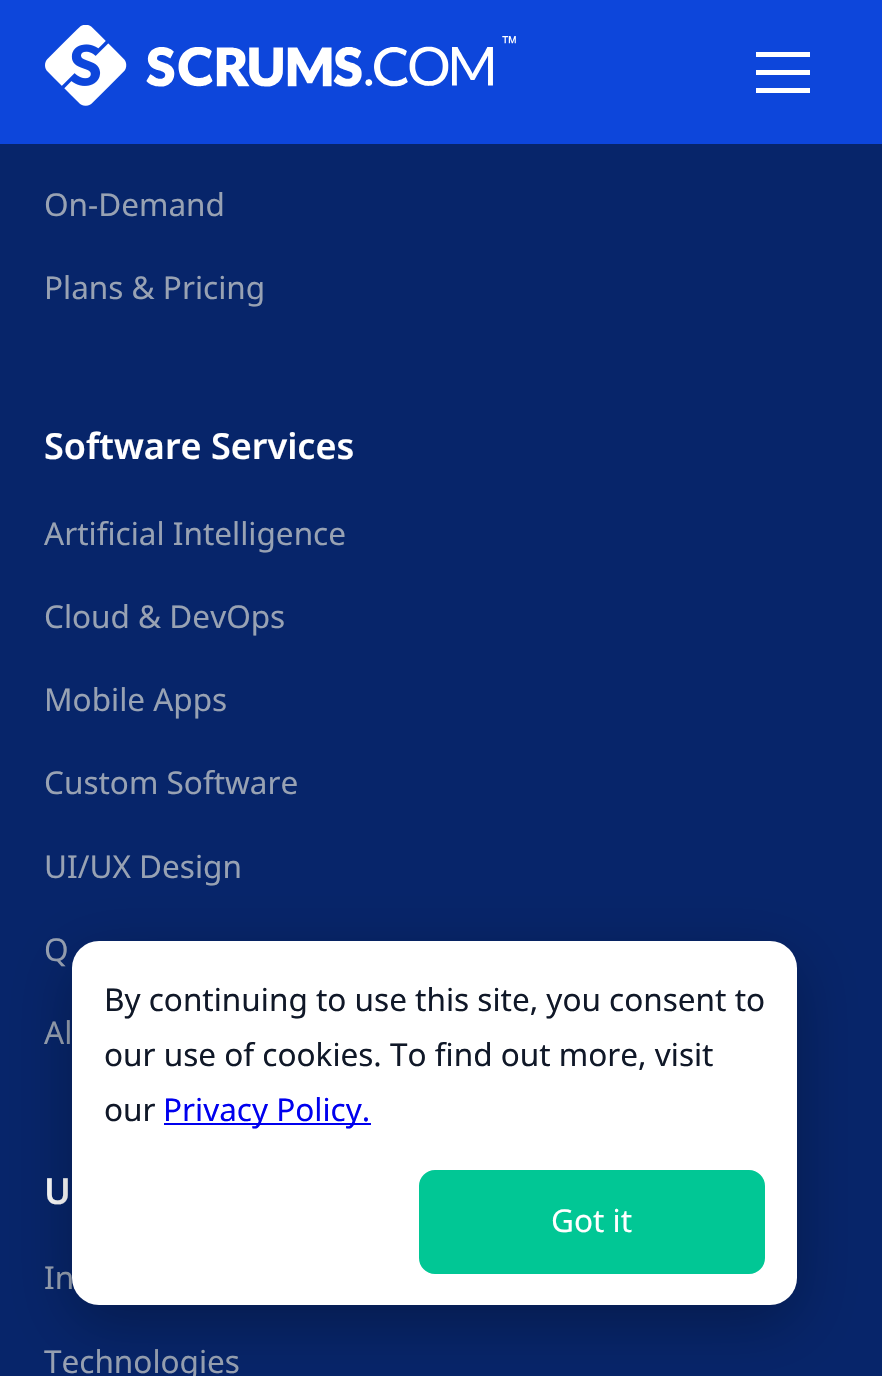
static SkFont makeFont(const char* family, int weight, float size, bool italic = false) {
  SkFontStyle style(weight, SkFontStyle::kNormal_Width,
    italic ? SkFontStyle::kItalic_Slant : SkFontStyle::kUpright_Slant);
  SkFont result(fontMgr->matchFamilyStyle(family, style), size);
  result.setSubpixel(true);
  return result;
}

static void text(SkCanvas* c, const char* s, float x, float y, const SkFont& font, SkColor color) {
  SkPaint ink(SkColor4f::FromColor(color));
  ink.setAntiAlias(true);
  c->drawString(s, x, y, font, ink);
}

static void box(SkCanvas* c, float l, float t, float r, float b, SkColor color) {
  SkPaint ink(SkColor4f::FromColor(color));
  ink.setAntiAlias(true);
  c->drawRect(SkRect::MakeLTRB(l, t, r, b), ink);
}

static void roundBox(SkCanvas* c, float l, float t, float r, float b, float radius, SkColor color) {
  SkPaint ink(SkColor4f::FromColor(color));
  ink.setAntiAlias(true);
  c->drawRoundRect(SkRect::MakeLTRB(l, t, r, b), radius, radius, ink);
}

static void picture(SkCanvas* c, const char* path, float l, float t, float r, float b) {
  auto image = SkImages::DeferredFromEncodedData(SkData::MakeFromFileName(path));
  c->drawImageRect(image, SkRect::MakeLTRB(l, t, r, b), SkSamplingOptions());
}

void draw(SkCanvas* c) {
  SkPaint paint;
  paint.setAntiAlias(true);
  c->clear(0xff07256a);
  box(c, 0, 0, 882, 144, 0xff0d46db);
  picture(c, "img_01.png", 45, 25, 127, 106);
  picture(c, "img_02.png", 146, 36, 516, 87);
  box(c, 756, 52, 810, 57, 0xffffffff);
  box(c, 756, 70, 810, 75, 0xffffffff);
  box(c, 756, 88, 810, 93, 0xffffffff);
  SkFont face1 = makeFont("Noto Sans", 400, 31.5f);
  text(c, "On-Demand", 44, 216, face1, 0xff98a2b3);
  text(c, "Plans & Pricing", 44, 299, face1, 0xff98a2b3);
  SkFont face2 = makeFont("Noto Sans", 600, 36);
  text(c, "Software Services", 44, 459, face2, 0xffffffff);
  text(c, "Artificial Intelligence", 44, 545, face1, 0xff98a2b3);
  text(c, "Cloud & DevOps", 44, 628, face1, 0xff98a2b3);
  text(c, "Mobile Apps", 44, 711, face1, 0xff98a2b3);
  text(c, "Custom Software", 44, 794, face1, 0xff98a2b3);
  text(c, "UI/UX Design", 44, 878, face1, 0xff98a2b3);
  text(c, "Q", 44, 961, face1, 0xff98a2b3);
  text(c, "Al", 44, 1044, face1, 0xff98a2b3);
  text(c, "U", 44, 1204, face2, 0xffffffff);
  text(c, "In", 44, 1289, face1, 0xff98a2b3);
  text(c, "Technologies", 44, 1373, face1, 0xff98a2b3);
  paint.setColor(0x47000000);
  paint.setMaskFilter(SkMaskFilter::MakeBlur(kNormal_SkBlurStyle, 31.5f));
  c->drawRoundRect(SkRect::MakeLTRB(72, 959, 797, 1323), 27, 27, paint);
  paint.setMaskFilter(nullptr);
  roundBox(c, 72, 941, 797, 1305, 27, 0xffffffff);
  text(c, "By continuing to use this site, you consent to", 104, 1011, face1, 0xff101828);
  text(c, "our use of cookies. To find out more, visit", 104, 1066, face1, 0xff101828);
  text(c, "our", 104, 1121, face1, 0xff101828);
  box(c, 164, 1123, 371, 1125, 0xff0000ee);
  text(c, "Privacy Policy.", 163, 1121, face1, 0xff0000ee);
  paint.setColor(0xff01c795);
  c->drawRoundRect(SkRect::MakeLTRB(420, 1171, 764, 1273), 15, 15, paint);
  paint.setStyle(SkPaint::kStroke_Style);
  paint.setStrokeWidth(2);
  c->drawRoundRect(SkRect::MakeLTRB(420, 1171, 764, 1273), 15, 15, paint);
  text(c, "Got it", 551, 1232, face1, 0xffffffff);
}
